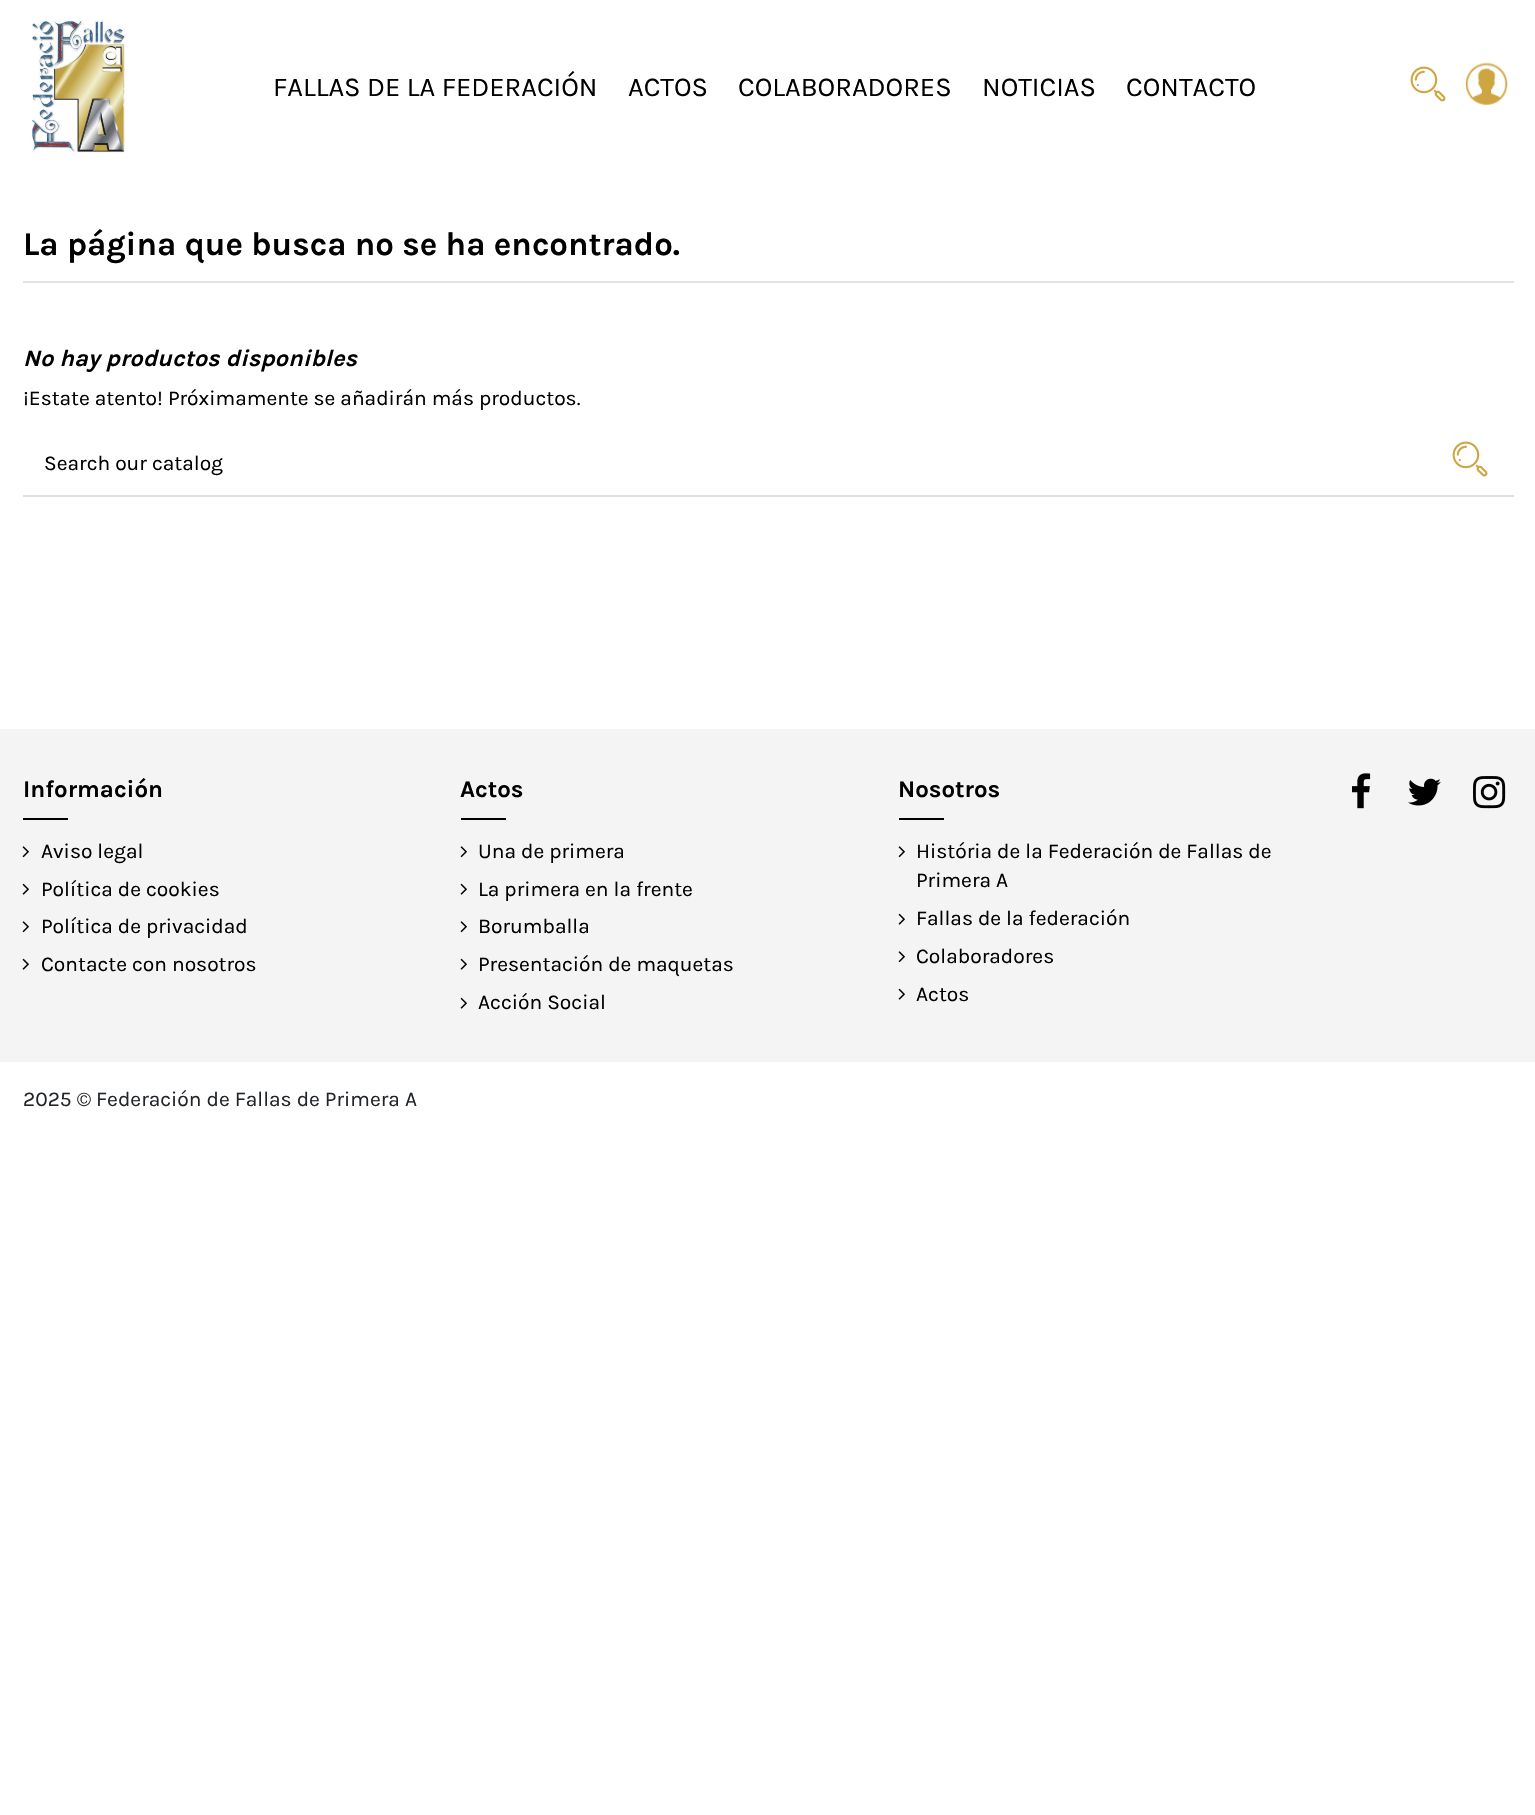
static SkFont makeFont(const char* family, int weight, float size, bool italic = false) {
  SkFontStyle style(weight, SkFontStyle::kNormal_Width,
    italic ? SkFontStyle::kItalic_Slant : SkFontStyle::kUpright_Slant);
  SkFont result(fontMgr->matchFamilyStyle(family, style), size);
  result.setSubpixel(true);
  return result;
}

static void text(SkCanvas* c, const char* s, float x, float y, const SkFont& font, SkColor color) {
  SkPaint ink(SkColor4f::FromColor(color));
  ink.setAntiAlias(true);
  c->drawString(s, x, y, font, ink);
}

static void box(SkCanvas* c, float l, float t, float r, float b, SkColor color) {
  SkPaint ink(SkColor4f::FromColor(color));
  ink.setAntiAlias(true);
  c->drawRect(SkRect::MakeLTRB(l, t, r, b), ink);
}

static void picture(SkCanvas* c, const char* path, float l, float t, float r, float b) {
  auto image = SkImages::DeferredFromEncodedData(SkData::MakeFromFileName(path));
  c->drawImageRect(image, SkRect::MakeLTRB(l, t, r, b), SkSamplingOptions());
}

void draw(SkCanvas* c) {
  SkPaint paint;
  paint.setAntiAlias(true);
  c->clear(0xffffffff);
  picture(c, "img_01.png", 31, 20, 125, 153);
  SkFont face1 = makeFont("Karla", 400, 27.25f);
  text(c, "FALLAS DE LA FEDERACIÓN", 273, 96, face1, 0xff000000);
  text(c, "ACTOS", 628, 96, face1, 0xff000000);
  text(c, "COLABORADORES", 738, 96, face1, 0xff000000);
  text(c, "NOTICIAS", 982, 96, face1, 0xff000000);
  text(c, "CONTACTO", 1126, 96, face1, 0xff000000);
  picture(c, "img_02.png", 1410, 66, 1446, 102);
  picture(c, "img_03.png", 1465, 62, 1508, 105);
  box(c, 23, 281, 1514, 283, 0xffe3e3e3);
  SkFont face2 = makeFont("Karla", 700, 33);
  text(c, "La página que busca no se ha encontrado.", 23, 255, face2, 0xff000000);
  SkFont face3 = makeFont("Karla", 700, 23.6f, true);
  text(c, "No hay productos disponibles", 23, 366, face3, 0xff000000);
  SkFont face4 = makeFont("Karla", 400, 21);
  text(c, "¡Estate atento! Próximamente se añadirán más productos.", 23, 405, face4, 0xff000000);
  box(c, 23, 495, 1514, 497, 0xffe1e1e1);
  text(c, "Search our catalog", 44, 470, face4, 0xff000000);
  picture(c, "img_02.png", 1452, 441, 1488, 477);
  box(c, 0, 729, 1535, 1062, 0xfff4f4f4);
  SkFont face5 = makeFont("Karla", 700, 24);
  text(c, "Información", 23, 797, face5, 0xff000000);
  box(c, 23, 818, 68, 820, 0xff000000);
  picture(c, "img_04.png", 22, 846, 29, 858);
  text(c, "Aviso legal", 41, 858, face4, 0xff000000);
  picture(c, "img_05.png", 22, 883, 29, 895);
  text(c, "Política de cookies", 41, 896, face4, 0xff000000);
  picture(c, "img_04.png", 22, 921, 29, 933);
  text(c, "Política de privacidad", 41, 933, face4, 0xff000000);
  picture(c, "img_05.png", 22, 958, 29, 970);
  text(c, "Contacte con nosotros", 41, 971, face4, 0xff000000);
  text(c, "Actos", 460, 797, face5, 0xff000000);
  box(c, 461, 818, 506, 820, 0xff000000);
  picture(c, "img_04.png", 460, 846, 467, 858);
  text(c, "Una de primera", 478, 858, face4, 0xff000000);
  picture(c, "img_05.png", 460, 883, 467, 895);
  text(c, "La primera en la frente", 478, 896, face4, 0xff000000);
  picture(c, "img_04.png", 460, 921, 467, 933);
  text(c, "Borumballa", 478, 933, face4, 0xff000000);
  picture(c, "img_05.png", 460, 958, 467, 970);
  text(c, "Presentación de maquetas", 478, 971, face4, 0xff000000);
  picture(c, "img_05.png", 460, 997, 467, 1009);
  text(c, "Acción Social", 478, 1009, face4, 0xff000000);
  text(c, "Nosotros", 898, 797, face5, 0xff000000);
  box(c, 899, 818, 944, 820, 0xff000000);
  picture(c, "img_04.png", 898, 846, 905, 858);
  text(c, "História de la Federación de Fallas de", 916, 858, face4, 0xff000000);
  text(c, "Primera A", 916, 887, face4, 0xff000000);
  picture(c, "img_05.png", 898, 913, 905, 925);
  text(c, "Fallas de la federación", 916, 925, face4, 0xff000000);
  picture(c, "img_04.png", 898, 951, 905, 963);
  text(c, "Colaboradores", 916, 963, face4, 0xff000000);
  picture(c, "img_05.png", 898, 988, 905, 1000);
  text(c, "Actos", 916, 1001, face4, 0xff000000);
  picture(c, "img_06.png", 1352, 773, 1371, 809);
  picture(c, "img_07.png", 1408, 778, 1441, 806);
  picture(c, "img_08.png", 1473, 776, 1506, 809);
  text(c, "2025 © Federación de Fallas de Primera A", 23, 1106, face4, 0xff212529);
}
